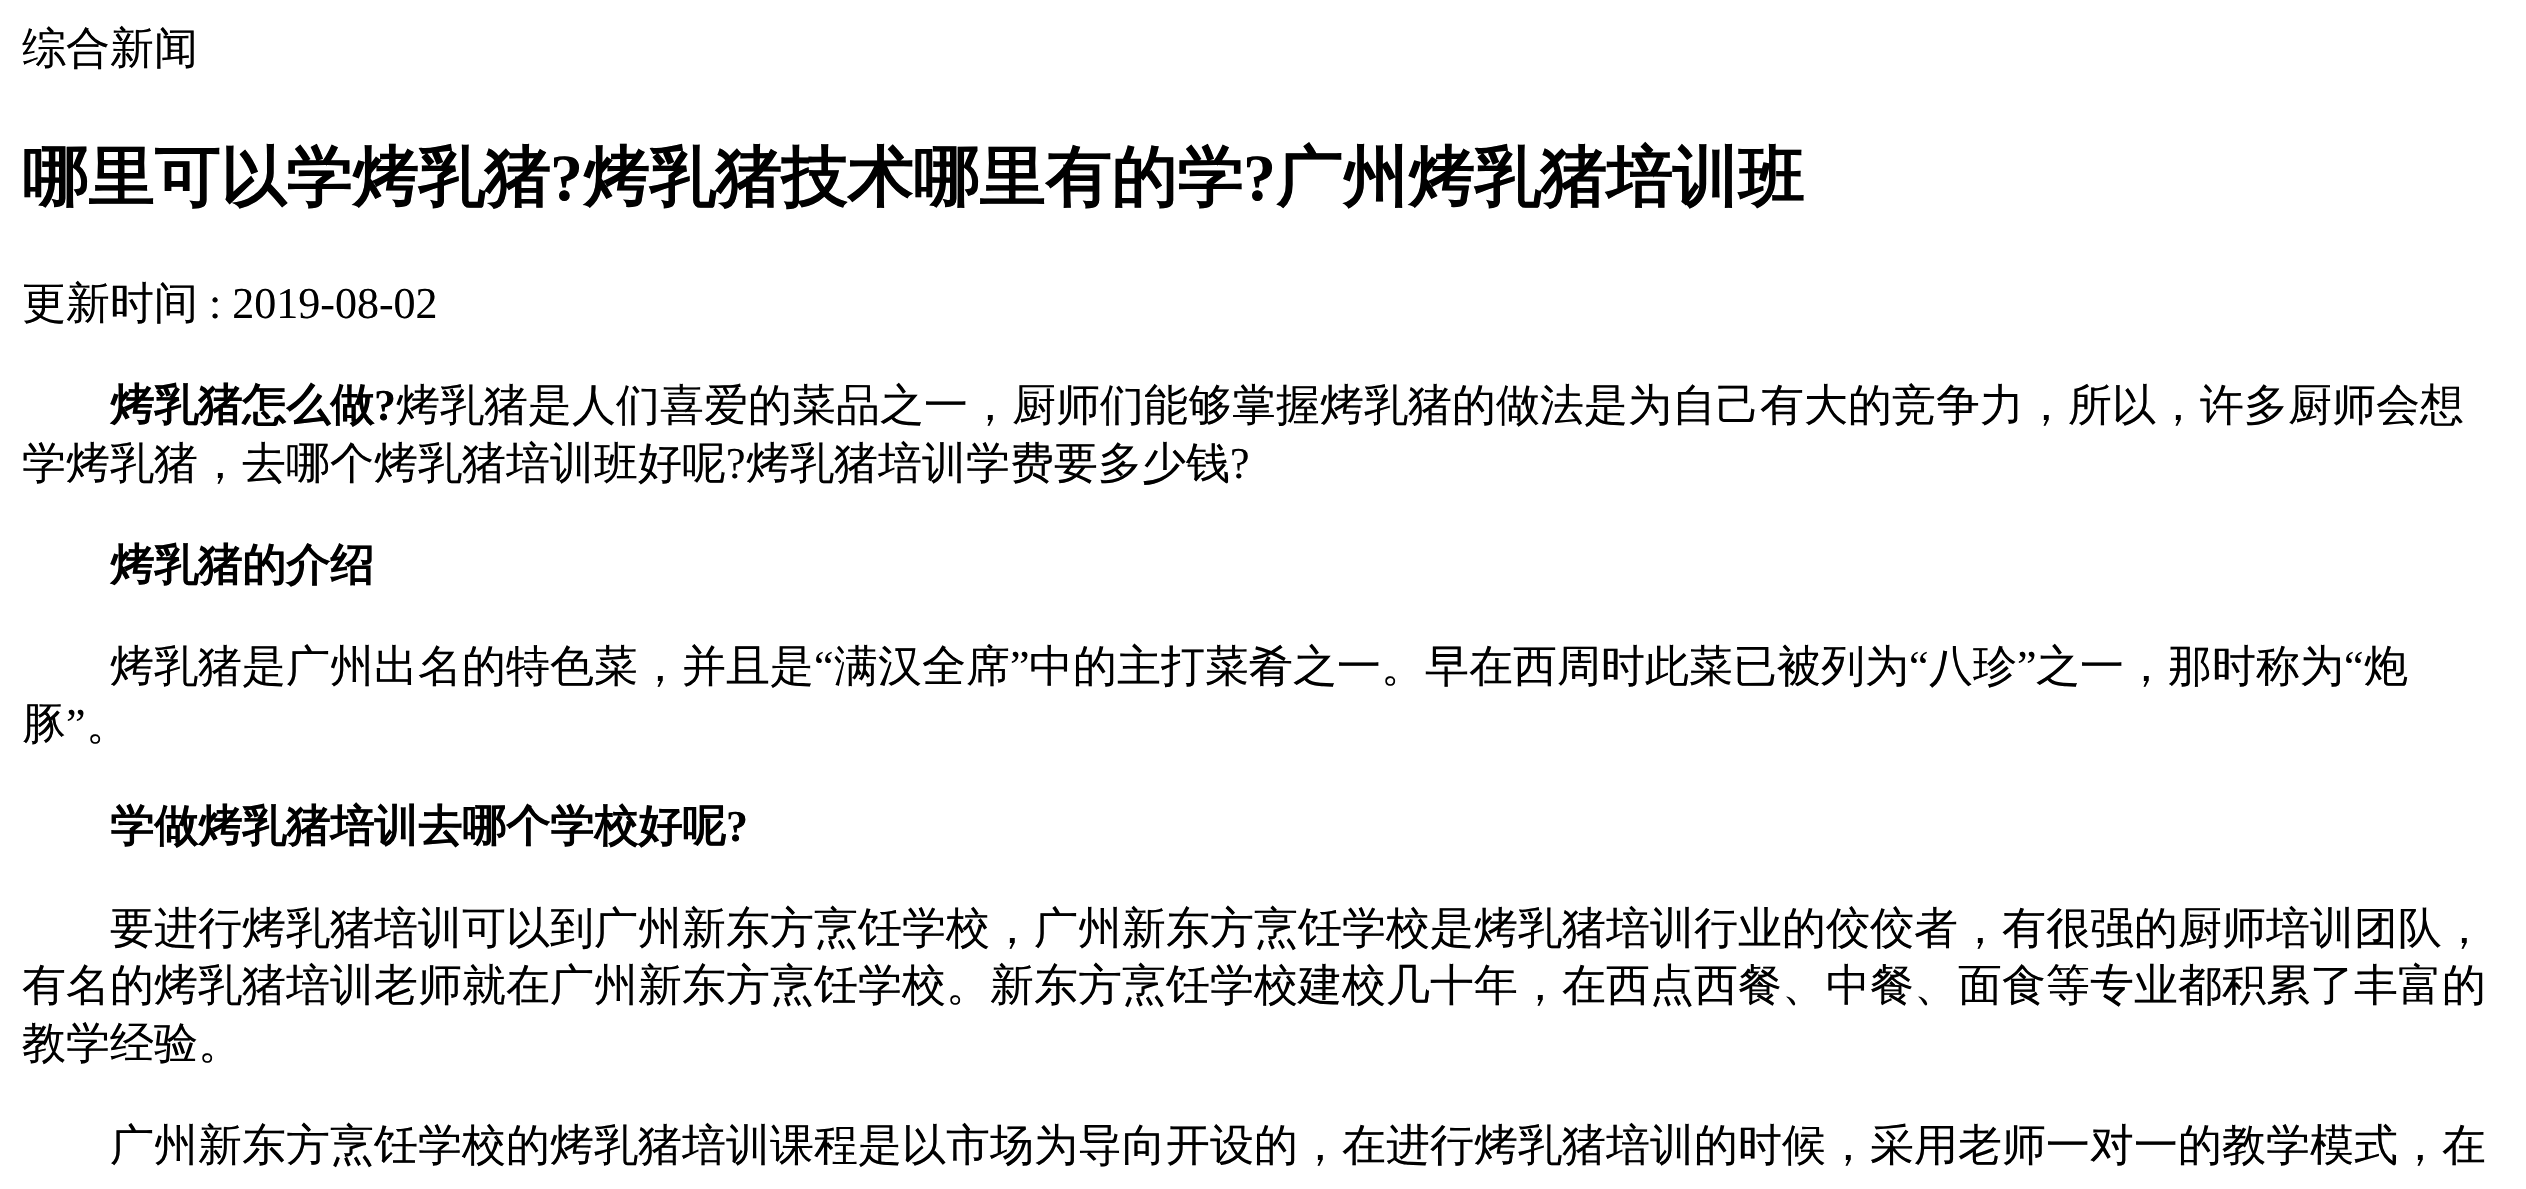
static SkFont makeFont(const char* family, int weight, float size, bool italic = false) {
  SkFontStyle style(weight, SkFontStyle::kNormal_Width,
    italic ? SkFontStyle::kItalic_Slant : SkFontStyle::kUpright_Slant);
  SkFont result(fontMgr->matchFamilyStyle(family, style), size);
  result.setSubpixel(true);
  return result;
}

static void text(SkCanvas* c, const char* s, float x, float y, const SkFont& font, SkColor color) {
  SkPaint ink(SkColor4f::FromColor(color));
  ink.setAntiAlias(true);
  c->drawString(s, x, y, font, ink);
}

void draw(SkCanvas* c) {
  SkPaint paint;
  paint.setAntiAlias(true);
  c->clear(0xffffffff);
  SkFont face1 = makeFont("WenQuanYi Zen Hei", 500, 44);
  text(c, "综合新闻", 22, 63, face1, 0xff000000);
  SkFont face2 = makeFont("WenQuanYi Zen Hei", 700, 66);
  text(c, "哪里可以学烤乳猪", 22, 200, face2, 0xff000000);
  SkFont face3 = makeFont("Liberation Serif", 700, 66);
  text(c, "?", 550, 200, face3, 0xff000000);
  text(c, "烤乳猪技术哪里有的学", 583, 200, face2, 0xff000000);
  text(c, "?", 1243, 200, face3, 0xff000000);
  text(c, "广州烤乳猪培训班", 1276, 200, face2, 0xff000000);
  text(c, "更新时间", 22, 318, face1, 0xff000000);
  SkFont face4 = makeFont("Liberation Serif", 400, 44);
  text(c, ": 2019-08-02", 209, 318, face4, 0xff000000);
  SkFont face5 = makeFont("WenQuanYi Zen Hei", 700, 44);
  text(c, "烤乳猪怎么做", 110, 420, face5, 0xff000000);
  SkFont face6 = makeFont("Liberation Serif", 700, 44);
  text(c, "?", 374, 420, face6, 0xff000000);
  text(c, "烤乳猪是人们喜爱的菜品之一，厨师们能够掌握烤乳猪的做法是为自己有大的竞争力，所以，许多厨师会想", 396, 420, face1, 0xff000000);
  text(c, "学烤乳猪，去哪个烤乳猪培训班好呢", 22, 478, face1, 0xff000000);
  text(c, "?", 726, 478, face4, 0xff000000);
  text(c, "烤乳猪培训学费要多少钱", 746, 478, face1, 0xff000000);
  text(c, "?", 1230, 478, face4, 0xff000000);
  text(c, "烤乳猪的介绍", 110, 580, face5, 0xff000000);
  text(c, "烤乳猪是广州出名的特色菜，并且是", 110, 681, face1, 0xff000000);
  text(c, "“", 814, 681, face4, 0xff000000);
  text(c, "满汉全席", 834, 681, face1, 0xff000000);
  text(c, "”", 1010, 681, face4, 0xff000000);
  text(c, "中的主打菜肴之一。早在西周时此菜已被列为", 1029, 681, face1, 0xff000000);
  text(c, "“", 1909, 681, face4, 0xff000000);
  text(c, "八珍", 1929, 681, face1, 0xff000000);
  text(c, "”", 2017, 681, face4, 0xff000000);
  text(c, "之一，那时称为", 2036, 681, face1, 0xff000000);
  text(c, "“", 2344, 681, face4, 0xff000000);
  text(c, "炮", 2364, 681, face1, 0xff000000);
  text(c, "豚", 22, 739, face1, 0xff000000);
  text(c, "”", 66, 739, face4, 0xff000000);
  text(c, "。", 86, 739, face1, 0xff000000);
  text(c, "学做烤乳猪培训去哪个学校好呢", 110, 841, face5, 0xff000000);
  text(c, "?", 726, 841, face6, 0xff000000);
  text(c, "要进行烤乳猪培训可以到广州新东方烹饪学校，广州新东方烹饪学校是烤乳猪培训行业的佼佼者，有很强的厨师培训团队，", 110, 943, face1, 0xff000000);
  text(c, "有名的烤乳猪培训老师就在广州新东方烹饪学校。新东方烹饪学校建校几十年，在西点西餐、中餐、面食等专业都积累了丰富的", 22, 1000, face1, 0xff000000);
  text(c, "教学经验。", 22, 1058, face1, 0xff000000);
  text(c, "广州新东方烹饪学校的烤乳猪培训课程是以市场为导向开设的，在进行烤乳猪培训的时候，采用老师一对一的教学模式，在", 110, 1160, face1, 0xff000000);
}
